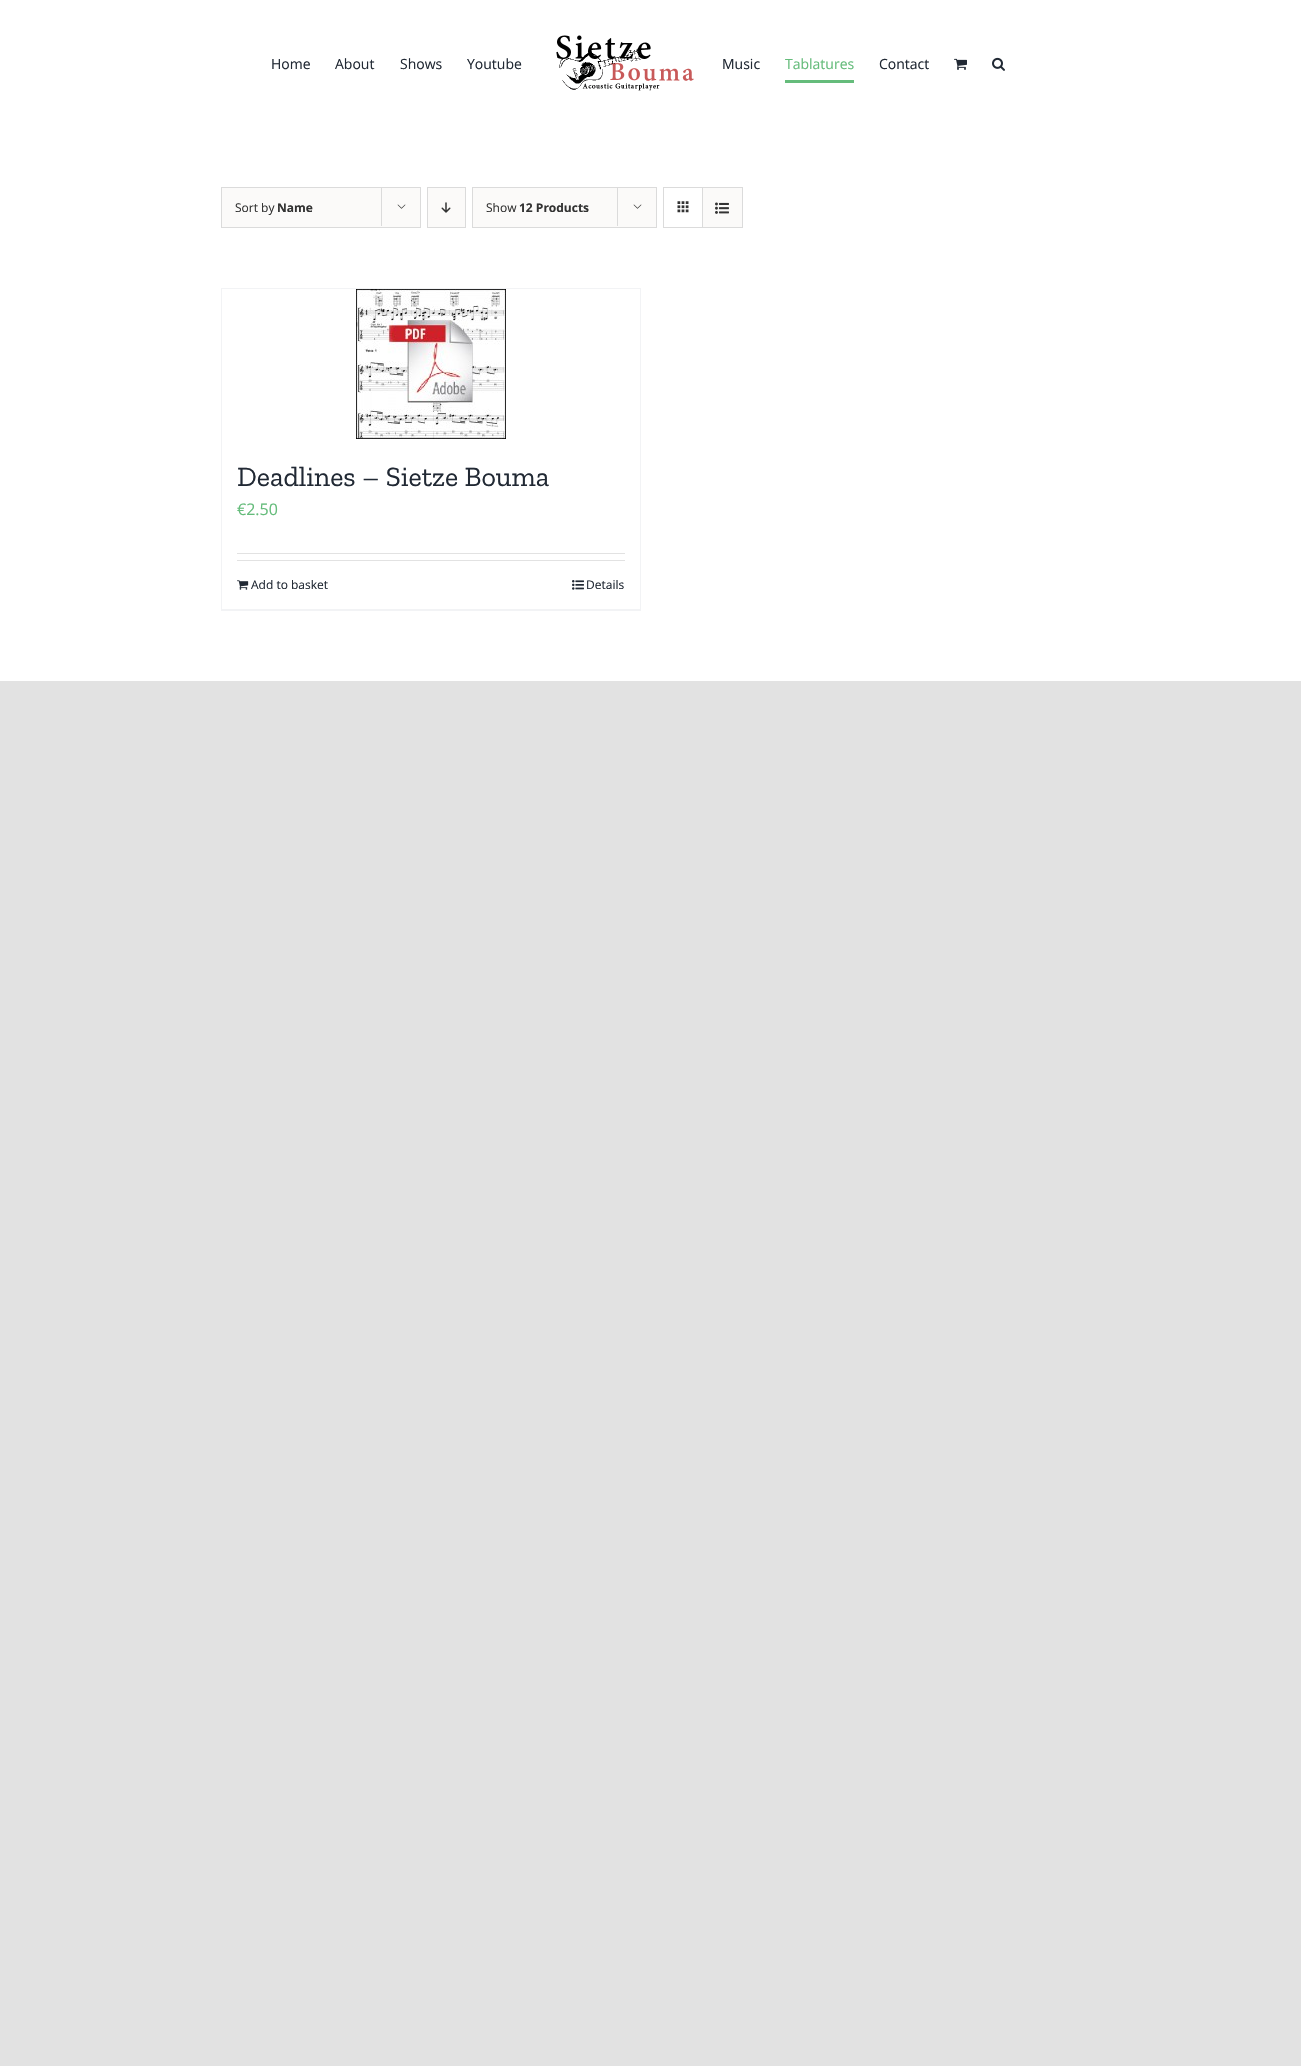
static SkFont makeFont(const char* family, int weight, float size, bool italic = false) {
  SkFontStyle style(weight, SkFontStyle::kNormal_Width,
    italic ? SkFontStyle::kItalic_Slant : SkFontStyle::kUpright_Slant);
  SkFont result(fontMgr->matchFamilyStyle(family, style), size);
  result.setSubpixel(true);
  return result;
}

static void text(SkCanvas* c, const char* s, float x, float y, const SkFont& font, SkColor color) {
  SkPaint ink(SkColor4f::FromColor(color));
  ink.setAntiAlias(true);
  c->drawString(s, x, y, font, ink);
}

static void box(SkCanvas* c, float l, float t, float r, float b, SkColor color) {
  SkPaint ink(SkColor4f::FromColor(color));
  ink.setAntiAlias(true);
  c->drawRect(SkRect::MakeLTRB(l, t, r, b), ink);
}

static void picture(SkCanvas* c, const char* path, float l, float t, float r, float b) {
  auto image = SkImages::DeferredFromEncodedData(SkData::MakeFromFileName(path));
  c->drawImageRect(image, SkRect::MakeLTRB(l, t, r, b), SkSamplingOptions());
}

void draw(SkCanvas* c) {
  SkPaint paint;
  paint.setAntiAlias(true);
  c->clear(0xffe2e2e2);
  box(c, 0, 0, 1301, 681, 0xffffffff);
  SkFont face1 = makeFont("Open Sans", 400, 14);
  text(c, "Home", 271, 69, face1, 0xff212934);
  text(c, "About", 335, 69, face1, 0xff212934);
  text(c, "Shows", 400, 69, face1, 0xff212934);
  text(c, "Youtube", 467, 69, face1, 0xff212934);
  picture(c, "img_01.png", 556, 35, 694, 91);
  text(c, "Music", 722, 69, face1, 0xff212934);
  text(c, "Tablatures", 785, 69, face1, 0xff65bc7b);
  box(c, 785, 80, 854, 83, 0xff65bc7b);
  text(c, "Contact", 879, 69, face1, 0xff212934);
  picture(c, "img_02.png", 954, 58, 967, 70);
  picture(c, "img_03.png", 992, 57, 1005, 71);
  paint.setColor(0xfffbfaf9);
  c->drawRect(SkRect::MakeLTRB(221.5f, 187.5f, 420.5f, 227.5f), paint);
  paint.setStyle(SkPaint::kStroke_Style);
  paint.setStrokeWidth(1);
  paint.setColor(0xffdbdbdb);
  c->drawRect(SkRect::MakeLTRB(221.5f, 187.5f, 420.5f, 227.5f), paint);
  SkFont face2 = makeFont("Open Sans", 400, 12);
  text(c, "Sort by", 235, 212, face2, 0xff333333);
  SkFont face3 = makeFont("Open Sans", 700, 12);
  text(c, "Name", 277, 212, face3, 0xff333333);
  box(c, 381, 187, 382, 226, 0xffdbdbdb);
  picture(c, "img_04.png", 397, 204, 406, 209);
  paint.setStyle(SkPaint::kFill_Style);
  paint.setColor(0xfffbfaf9);
  c->drawRect(SkRect::MakeLTRB(427.5f, 187.5f, 465.5f, 227.5f), paint);
  paint.setStyle(SkPaint::kStroke_Style);
  paint.setColor(0xffdbdbdb);
  c->drawRect(SkRect::MakeLTRB(427.5f, 187.5f, 465.5f, 227.5f), paint);
  picture(c, "img_05.png", 441, 202, 451, 213);
  paint.setStyle(SkPaint::kFill_Style);
  paint.setColor(0xfffbfaf9);
  c->drawRect(SkRect::MakeLTRB(472.5f, 187.5f, 656.5f, 227.5f), paint);
  paint.setStyle(SkPaint::kStroke_Style);
  paint.setColor(0xffdbdbdb);
  c->drawRect(SkRect::MakeLTRB(472.5f, 187.5f, 656.5f, 227.5f), paint);
  text(c, "Show", 486, 212, face2, 0xff333333);
  text(c, "12 Products", 519, 212, face3, 0xff333333);
  box(c, 617, 187, 618, 226, 0xffdbdbdb);
  picture(c, "img_04.png", 633, 204, 642, 209);
  c->drawRect(SkRect::MakeLTRB(663.5f, 187.5f, 742.5f, 227.5f), paint);
  box(c, 702, 188, 703, 227, 0xffdbdbdb);
  picture(c, "img_06.png", 677, 201, 689, 213);
  box(c, 703, 188, 742, 227, 0xfffbfaf9);
  picture(c, "img_07.png", 715, 202, 729, 214);
  box(c, 221, 288, 641, 289, 0xfff2f3f5);
  box(c, 640, 288, 641, 611, 0xfff2f3f5);
  box(c, 221, 609, 641, 611, 0xfff2f3f5);
  box(c, 221, 288, 222, 611, 0xfff2f3f5);
  picture(c, "img_08.png", 356, 289, 506, 439);
  SkFont face4 = makeFont("Zilla Slab", 400, 28);
  text(c, "Deadlines – Sietze Bouma", 237, 486, face4, 0xff212934);
  SkFont face5 = makeFont("Open Sans", 400, 16);
  text(c, "€2.50", 237, 515, face5, 0xff65bc7b);
  box(c, 237, 553, 625, 554, 0xffe2e2e2);
  box(c, 237, 560, 625, 561, 0xffe2e2e2);
  picture(c, "img_09.png", 237, 580, 249, 590);
  text(c, "Add to basket", 251, 589, face2, 0xff212934);
  picture(c, "img_10.png", 572, 580, 584, 590);
  text(c, "Details", 586, 589, face2, 0xff212934);
}
